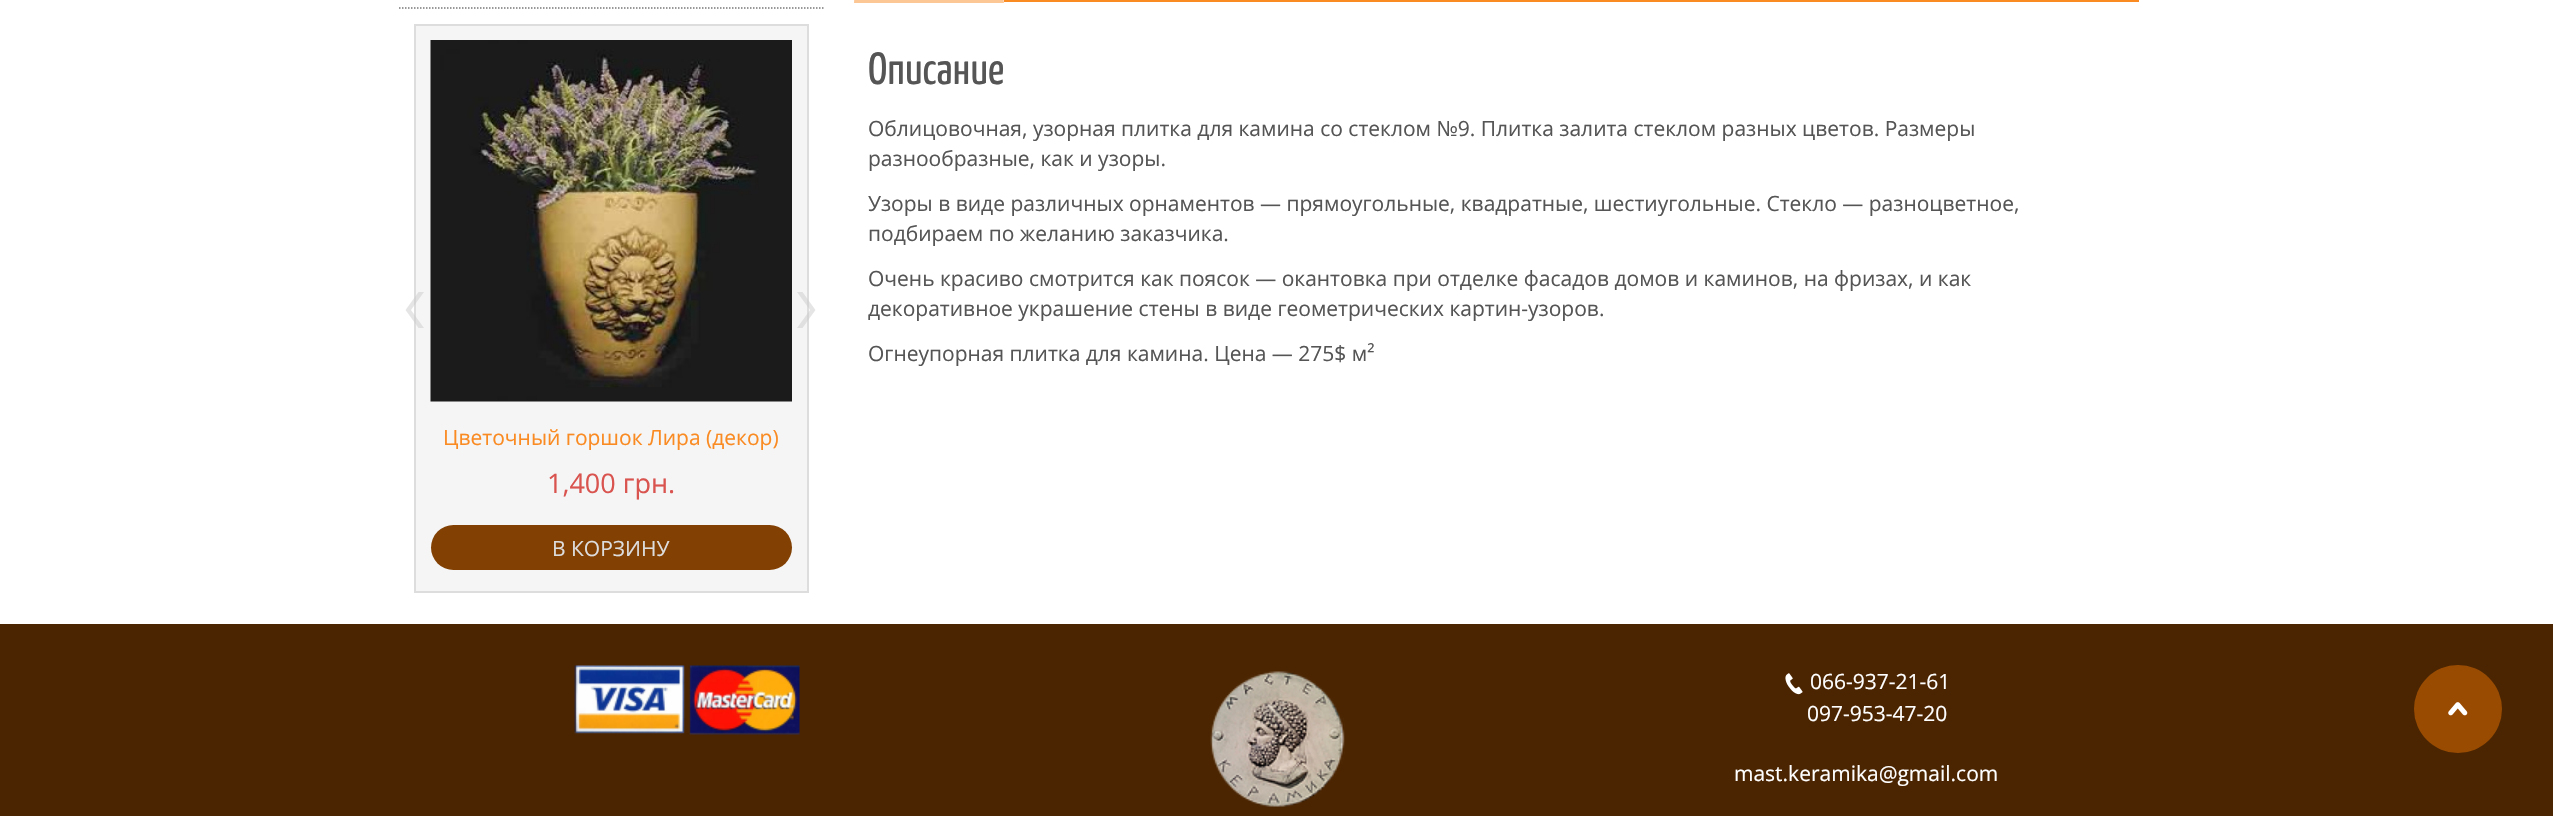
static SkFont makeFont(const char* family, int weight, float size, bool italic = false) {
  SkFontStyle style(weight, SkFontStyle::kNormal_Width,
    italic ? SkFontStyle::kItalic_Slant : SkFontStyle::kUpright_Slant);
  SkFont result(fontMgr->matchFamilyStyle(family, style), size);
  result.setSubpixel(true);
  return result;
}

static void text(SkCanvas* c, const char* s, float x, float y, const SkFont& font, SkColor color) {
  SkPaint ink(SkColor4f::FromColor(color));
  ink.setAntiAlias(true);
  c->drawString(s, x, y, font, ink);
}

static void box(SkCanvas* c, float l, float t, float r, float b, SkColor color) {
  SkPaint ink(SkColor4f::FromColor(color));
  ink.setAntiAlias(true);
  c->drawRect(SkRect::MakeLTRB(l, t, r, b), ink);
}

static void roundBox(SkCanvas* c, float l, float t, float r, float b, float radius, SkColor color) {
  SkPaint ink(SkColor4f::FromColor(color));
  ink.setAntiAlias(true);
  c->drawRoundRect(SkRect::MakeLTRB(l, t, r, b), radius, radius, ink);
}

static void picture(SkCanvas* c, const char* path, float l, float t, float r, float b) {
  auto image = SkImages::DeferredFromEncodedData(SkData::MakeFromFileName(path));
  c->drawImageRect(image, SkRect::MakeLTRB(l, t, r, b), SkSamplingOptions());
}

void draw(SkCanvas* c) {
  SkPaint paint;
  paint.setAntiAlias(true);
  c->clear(0xffffffff);
  box(c, 854, 0, 1004, 3, 0xfffcd9ba);
  paint.setColor(0xfffdc795);
  c->drawPath(SkPathBuilder().moveTo(1004, 3).lineTo(854, 3).lineTo(855, -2).lineTo(1002, -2).close().detach(), paint);
  box(c, 1004, 0, 2139, 2, 0xfffa8b23);
  SkFont face1 = makeFont("Yanone Kaffeesatz", 400, 45);
  text(c, "Описание", 868, 84, face1, 0xff555555);
  SkFont face2 = makeFont("Open Sans", 400, 21);
  text(c, "Облицовочная, узорная плитка для камина со стеклом №9. Плитка залита стеклом разных цветов. Размеры", 868, 136, face2, 0xff555555);
  text(c, "разнообразные, как и узоры.", 868, 166, face2, 0xff555555);
  text(c, "Узоры в виде различных орнаментов — прямоугольные, квадратные, шестиугольные. Стекло — разноцветное,", 868, 211, face2, 0xff555555);
  text(c, "подбираем по желанию заказчика.", 868, 241, face2, 0xff555555);
  text(c, "Очень красиво смотрится как поясок — окантовка при отделке фасадов домов и каминов, на фризах, и как", 868, 286, face2, 0xff555555);
  text(c, "декоративное украшение стены в виде геометрических картин-узоров.", 868, 316, face2, 0xff555555);
  text(c, "Огнеупорная плитка для камина. Цена — 275$ м²", 868, 361, face2, 0xff555555);
  paint.setStyle(SkPaint::kStroke_Style);
  paint.setStrokeWidth(1.5f);
  paint.setColor(0xff777777);
  paint.setPathEffect(SkDashPathEffect::Make({{1.5f, 1.5f}}, 0));
  c->drawPath(SkPathBuilder().moveTo(399, 8).lineTo(823.5f, 8).detach(), paint);
  paint.setPathEffect(nullptr);
  paint.setStyle(SkPaint::kFill_Style);
  paint.setColor(0xfff5f5f5);
  c->drawRect(SkRect::MakeLTRB(415, 25, 808, 592), paint);
  paint.setStyle(SkPaint::kStroke_Style);
  paint.setStrokeWidth(2);
  paint.setColor(0xffdddddd);
  c->drawRect(SkRect::MakeLTRB(415, 25, 808, 592), paint);
  paint.setStyle(SkPaint::kFill_Style);
  paint.setColor(0x80cccccc);
  c->drawPath(SkPathBuilder().moveTo(405.5f, 310).lineTo(418.5f, 292).lineTo(424, 292).lineTo(411, 310).lineTo(424, 328).lineTo(418.5f, 328).close().detach(), paint);
  c->drawPath(SkPathBuilder().moveTo(815.5f, 310).lineTo(802.5f, 292).lineTo(797, 292).lineTo(810, 310).lineTo(797, 328).lineTo(802.5f, 328).close().detach(), paint);
  picture(c, "img_01.png", 430, 40, 792, 402);
  text(c, "Цветочный горшок Лира (декор)", 443, 445, face2, 0xfffa8b23);
  SkFont face3 = makeFont("Open Sans", 400, 27);
  text(c, "1,400 грн.", 547, 493, face3, 0xffd9534f);
  roundBox(c, 431, 525, 792, 570, 22.5f, 0xff824003);
  text(c, "В КОРЗИНУ", 552, 556, face2, 0xffdddddd);
  box(c, 0, 624, 2553, 816, 0xff4b2502);
  picture(c, "img_02.png", 574, 665, 800, 735);
  picture(c, "img_03.png", 1210, 671, 1345, 807);
  picture(c, "img_04.png", 1785, 673, 1803, 695);
  text(c, "066-937-21-61", 1810, 689, face2, 0xffffffff);
  text(c, "097-953-47-20", 1807, 721, face2, 0xffffffff);
  text(c, "mast.keramika@gmail.com", 1734, 781, face2, 0xffffffff);
  paint.setColor(0xff994b02);
  c->drawCircle(2458, 709, 44, paint);
  picture(c, "img_05.png", 2448, 702, 2468, 716);
}
